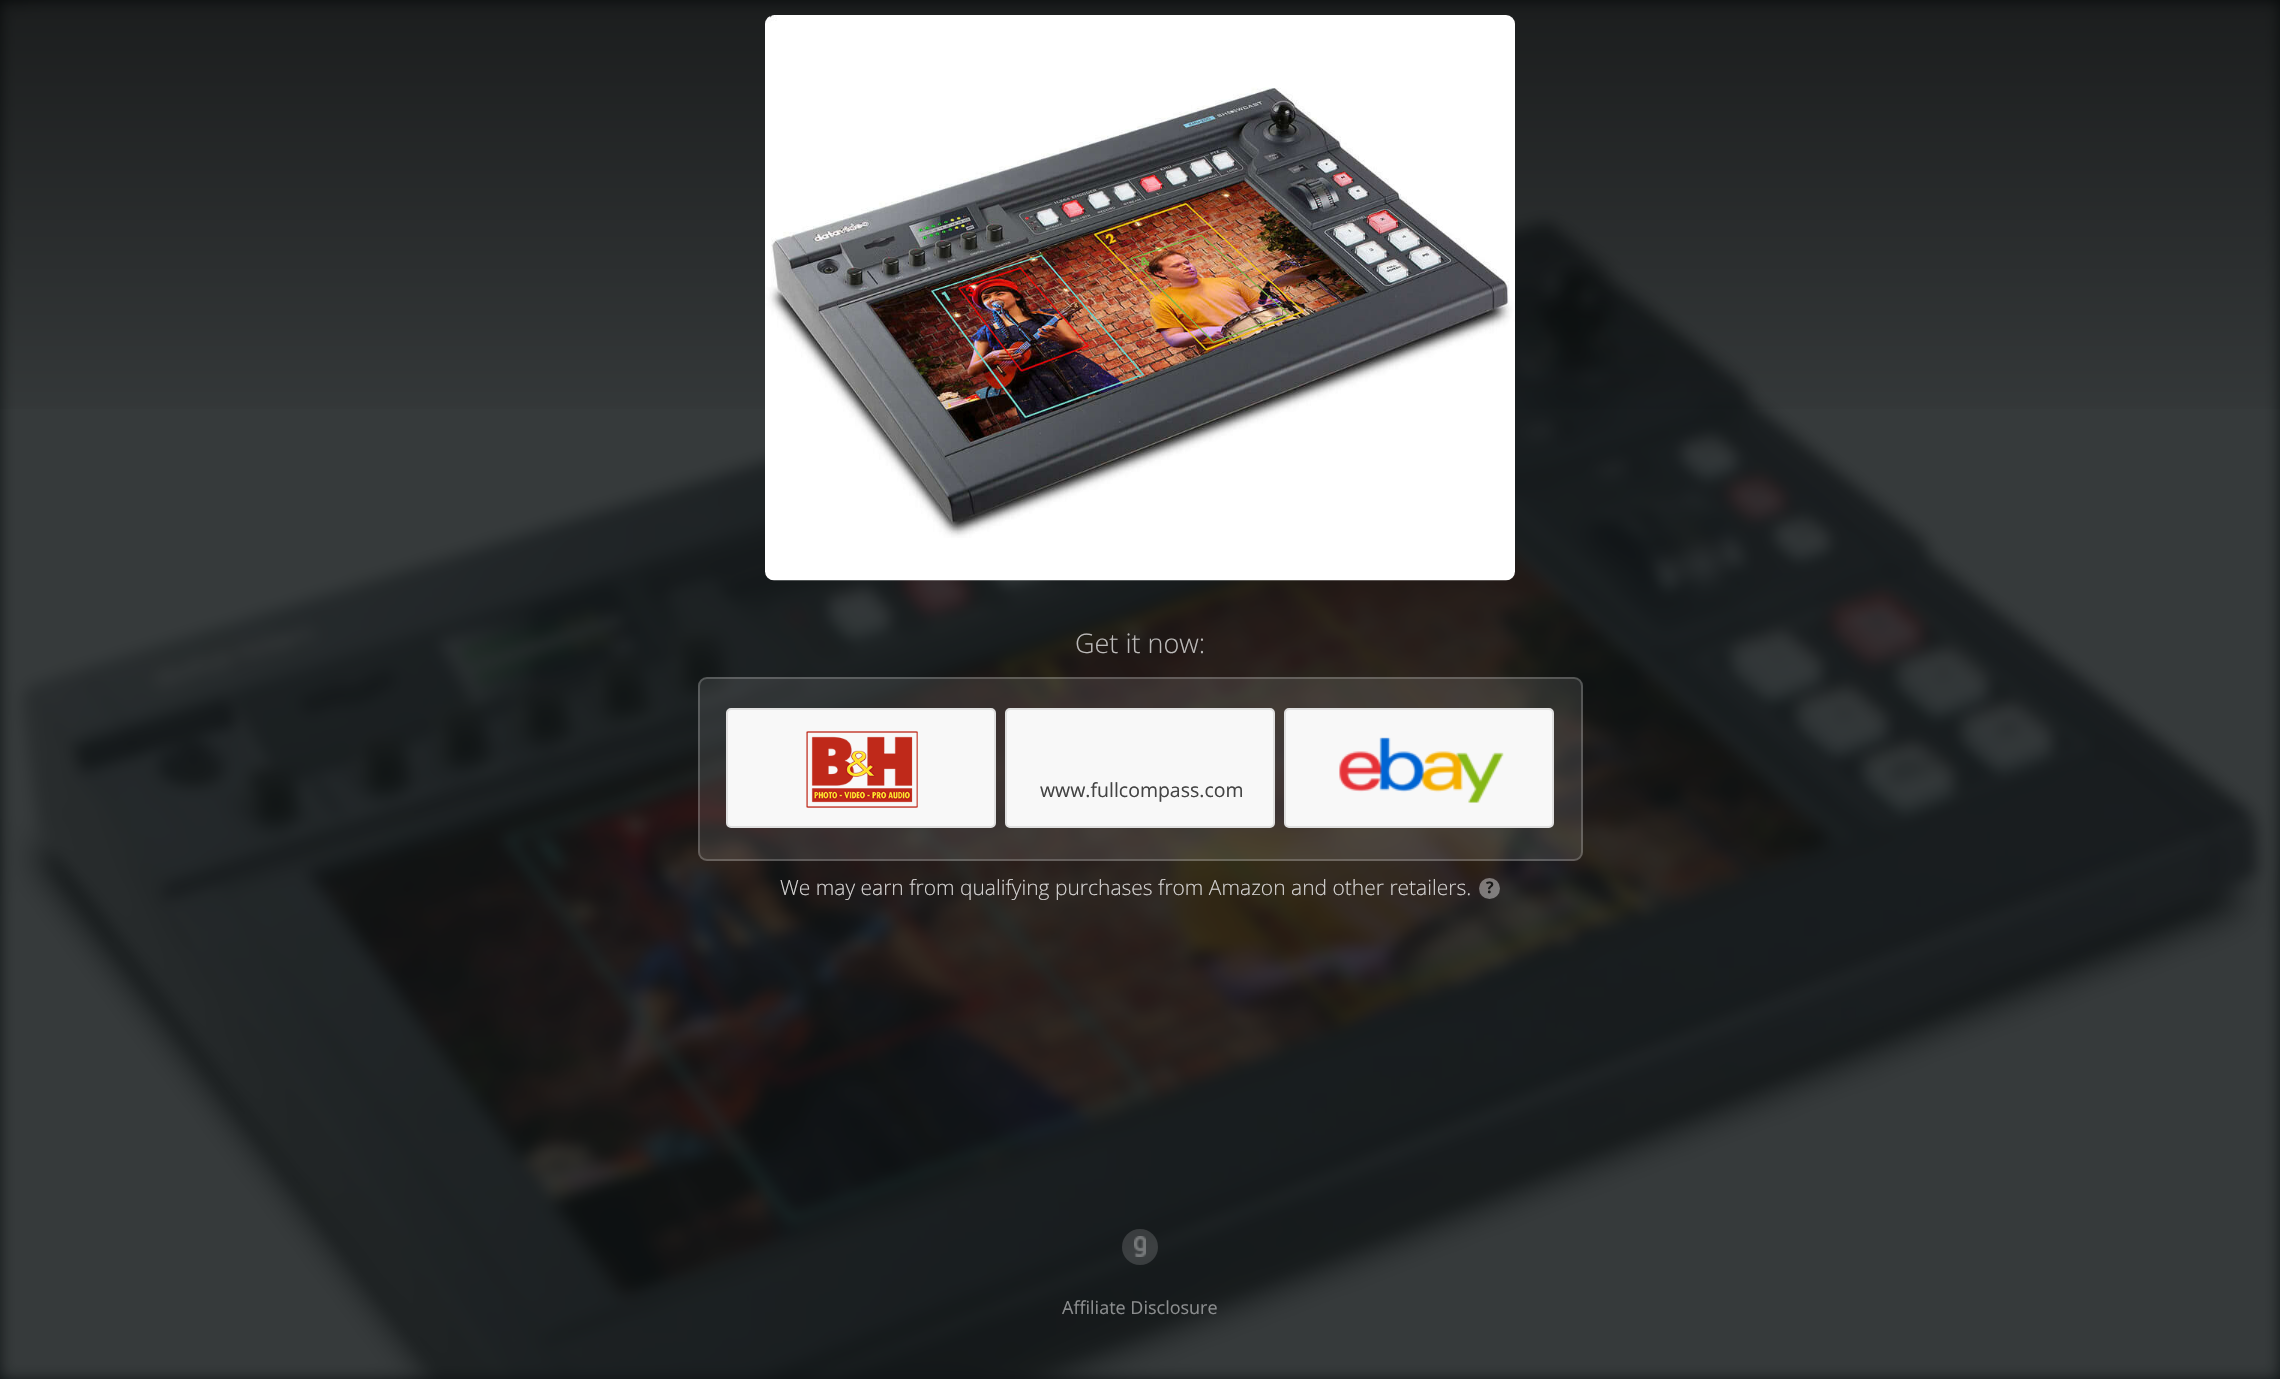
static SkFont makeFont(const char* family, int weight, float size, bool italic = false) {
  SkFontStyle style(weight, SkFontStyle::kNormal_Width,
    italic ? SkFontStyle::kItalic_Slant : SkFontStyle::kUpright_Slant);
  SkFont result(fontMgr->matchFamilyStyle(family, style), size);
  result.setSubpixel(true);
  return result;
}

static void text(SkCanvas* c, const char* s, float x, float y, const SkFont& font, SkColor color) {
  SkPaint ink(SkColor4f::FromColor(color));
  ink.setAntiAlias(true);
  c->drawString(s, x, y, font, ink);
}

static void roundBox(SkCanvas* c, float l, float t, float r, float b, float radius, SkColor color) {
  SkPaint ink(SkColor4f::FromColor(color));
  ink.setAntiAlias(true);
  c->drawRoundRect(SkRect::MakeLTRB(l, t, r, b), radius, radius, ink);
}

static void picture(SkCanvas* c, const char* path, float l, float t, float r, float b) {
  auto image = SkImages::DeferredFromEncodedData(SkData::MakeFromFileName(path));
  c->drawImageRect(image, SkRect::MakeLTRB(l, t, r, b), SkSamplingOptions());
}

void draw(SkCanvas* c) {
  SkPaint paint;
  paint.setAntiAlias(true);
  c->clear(0xff0f1415);
  picture(c, "img_01.png", 0, 0, 2280, 1379);
  {
    const SkColor colors[] = {0x80000000, 0x00000000};
    const float stops[] = {0, 1};
    const SkPoint ends[] = {{1140, 0}, {1140, 450}};
    paint.setShader(SkGradientShader::MakeLinear(ends, colors, stops, 2, SkTileMode::kClamp));
    paint.setAlpha(255);
  }
  c->drawRect(SkRect::MakeLTRB(0, 0, 2280, 409), paint);
  picture(c, "img_02.png", 765, 15, 1515, 581);
  SkFont face1 = makeFont("Open Sans", 300, 27);
  text(c, "Get it now:", 1075, 653, face1, 0xffbcbab9);
  roundBox(c, 698, 677, 1583, 861, 9, 0x1affffff);
  paint.setStyle(SkPaint::kStroke_Style);
  paint.setStrokeWidth(2);
  paint.setShader(nullptr);
  paint.setColor(0x33ffffff);
  c->drawRoundRect(SkRect::MakeLTRB(699, 678, 1582, 860), 8, 8, paint);
  paint.setStyle(SkPaint::kFill_Style);
  paint.setColor(0xfff8f8f8);
  c->drawRoundRect(SkRect::MakeLTRB(727, 709, 995, 827), 4, 4, paint);
  paint.setStyle(SkPaint::kStroke_Style);
  paint.setColor(0xffe0e0e0);
  c->drawRoundRect(SkRect::MakeLTRB(727, 709, 995, 827), 4, 4, paint);
  picture(c, "img_03.png", 806, 731, 918, 808);
  paint.setStyle(SkPaint::kFill_Style);
  paint.setColor(0xfff8f8f8);
  c->drawRoundRect(SkRect::MakeLTRB(1006, 709, 1274, 827), 4, 4, paint);
  paint.setStyle(SkPaint::kStroke_Style);
  paint.setColor(0xffe0e0e0);
  c->drawRoundRect(SkRect::MakeLTRB(1006, 709, 1274, 827), 4, 4, paint);
  SkFont face2 = makeFont("Open Sans", 400, 19.5f);
  text(c, "www.fullcompass.com", 1040, 797, face2, 0xff444444);
  paint.setStyle(SkPaint::kFill_Style);
  paint.setColor(0xfff8f8f8);
  c->drawRoundRect(SkRect::MakeLTRB(1285, 709, 1553, 827), 4, 4, paint);
  paint.setStyle(SkPaint::kStroke_Style);
  paint.setColor(0xffe0e0e0);
  c->drawRoundRect(SkRect::MakeLTRB(1285, 709, 1553, 827), 4, 4, paint);
  picture(c, "img_04.png", 1339, 737, 1504, 803);
  SkFont face3 = makeFont("Open Sans", 300, 21);
  text(c, "We may earn from qualifying purchases from Amazon and other retailers.", 780, 895, face3, 0xffd5d3d2);
  paint.setStyle(SkPaint::kFill_Style);
  paint.setColor(0x66ffffff);
  c->drawCircle(1489.5f, 888.5f, 10.5f, paint);
  SkFont face4 = makeFont("Open Sans", 700, 16);
  text(c, "?", 1486, 893, face4, 0xff191918);
  paint.setColor(0x26ffffff);
  c->drawCircle(1140, 1247, 18, paint);
  picture(c, "img_05.png", 1134, 1236, 1146, 1257);
  SkFont face5 = makeFont("Open Sans", 400, 18);
  text(c, "Affiliate Disclosure", 1062, 1314, face5, 0xff8b8d8e);
}
